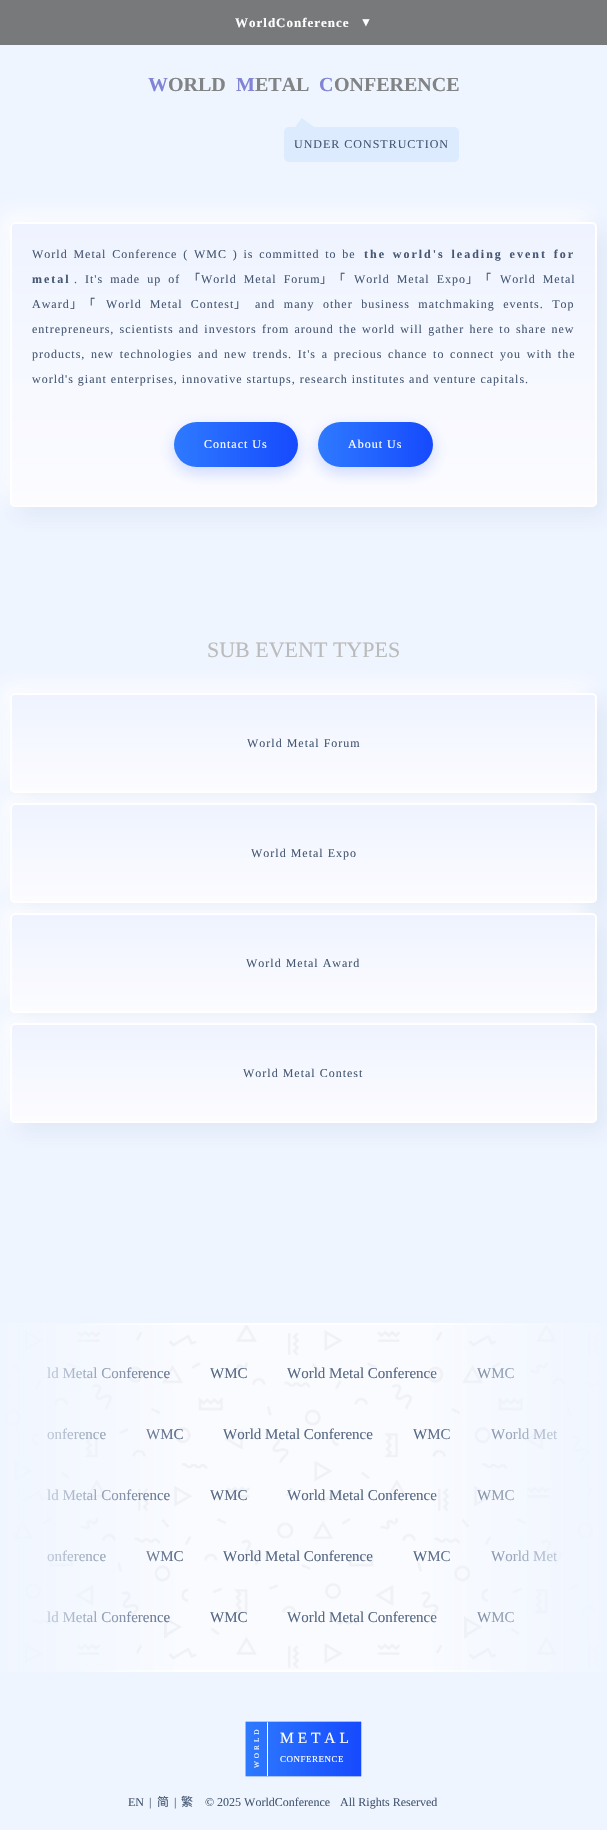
static SkFont makeFont(const char* family, int weight, float size, bool italic = false) {
  SkFontStyle style(weight, SkFontStyle::kNormal_Width,
    italic ? SkFontStyle::kItalic_Slant : SkFontStyle::kUpright_Slant);
  SkFont result(fontMgr->matchFamilyStyle(family, style), size);
  result.setSubpixel(true);
  return result;
}

static void text(SkCanvas* c, const char* s, float x, float y, const SkFont& font, SkColor color) {
  SkPaint ink(SkColor4f::FromColor(color));
  ink.setAntiAlias(true);
  c->drawString(s, x, y, font, ink);
}

static void spacedText(SkCanvas* c, const char* s, float x, float y, const SkFont& font, const SkPaint& ink, float letter, float word) {
  std::vector<SkGlyphID> glyphs(font.countText(s, strlen(s), SkTextEncoding::kUTF8));
  std::vector<float> xs(glyphs.size());
  font.textToGlyphs(s, strlen(s), SkTextEncoding::kUTF8, glyphs);
  font.getXPos(glyphs, xs, x);
  float extra = 0;
  for (size_t i = 0; i < glyphs.size(); i++) {
    xs[i] += extra;
    extra += letter + word * (glyphs[i] == font.unicharToGlyph(' '));
  }
  c->drawTextBlob(SkTextBlob::MakeFromPosHGlyphs(glyphs, xs, y, font), 0, 0, ink);
}

static void box(SkCanvas* c, float l, float t, float r, float b, SkColor color) {
  SkPaint ink(SkColor4f::FromColor(color));
  ink.setAntiAlias(true);
  c->drawRect(SkRect::MakeLTRB(l, t, r, b), ink);
}

static void roundBox(SkCanvas* c, float l, float t, float r, float b, float radius, SkColor color) {
  SkPaint ink(SkColor4f::FromColor(color));
  ink.setAntiAlias(true);
  c->drawRoundRect(SkRect::MakeLTRB(l, t, r, b), radius, radius, ink);
}

static void picture(SkCanvas* c, const char* path, float l, float t, float r, float b) {
  auto image = SkImages::DeferredFromEncodedData(SkData::MakeFromFileName(path));
  c->drawImageRect(image, SkRect::MakeLTRB(l, t, r, b), SkSamplingOptions());
}

void draw(SkCanvas* c) {
  SkPaint paint;
  paint.setAntiAlias(true);
  c->clear(0xffeff5ff);
  box(c, 0, 1323, 607, 1672, 0xfff9fbff);
  box(c, 0, 0, 607, 45, 0xff78797b);
  SkFont face1 = makeFont("Liberation Serif", 700, 13);
  paint.setColor(0xffffffff);
  spacedText(c, "WorldConference", 235, 27, face1, paint, 1, 0);
  SkFont face2 = makeFont("Liberation Serif", 400, 12);
  text(c, "▼", 360, 26, face2, 0xffffffff);
  SkFont face3 = makeFont("Liberation Serif", 700, 20);
  text(c, "W", 148, 91, face3, 0xff8183d6);
  text(c, "ORLD", 168, 91, face3, 0xff818385);
  text(c, "M", 236, 91, face3, 0xff8183d6);
  text(c, "ETAL", 255, 91, face3, 0xff818385);
  text(c, "C", 319, 91, face3, 0xff8183d6);
  text(c, "ONFERENCE", 334, 91, face3, 0xff818385);
  paint.setColor(0xffddebff);
  c->drawPath(SkPathBuilder().moveTo(301.5f, 118).lineTo(318, 129.5f).lineTo(306.5f, 146).lineTo(290, 134.5f).close().detach(), paint);
  roundBox(c, 284, 127, 459, 162, 5, 0xffddebff);
  paint.setColor(0xff455772);
  spacedText(c, "UNDER CONSTRUCTION", 294, 148, face2, paint, 1, 0);
  c->save();
  c->clipPath(SkPathBuilder(SkPathFillType::kEvenOdd).moveTo(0, 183).lineTo(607, 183).lineTo(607, 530).lineTo(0, 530).close().moveTo(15, 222).lineTo(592, 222).cubicTo(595, 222, 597, 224, 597, 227).lineTo(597, 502).cubicTo(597, 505, 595, 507, 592, 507).lineTo(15, 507).cubicTo(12, 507, 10, 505, 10, 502).lineTo(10, 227).cubicTo(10, 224, 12, 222, 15, 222).close().detach(), true);
  paint.setColor(0xffffffff);
  paint.setMaskFilter(SkMaskFilter::MakeBlur(kNormal_SkBlurStyle, 10));
  c->drawRoundRect(SkRect::MakeLTRB(2, 214, 589, 499), 5, 5, paint);
  paint.setMaskFilter(nullptr);
  c->restore();
  c->save();
  c->clipPath(SkPathBuilder(SkPathFillType::kEvenOdd).moveTo(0, 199).lineTo(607, 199).lineTo(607, 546).lineTo(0, 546).close().moveTo(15, 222).lineTo(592, 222).cubicTo(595, 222, 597, 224, 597, 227).lineTo(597, 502).cubicTo(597, 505, 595, 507, 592, 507).lineTo(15, 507).cubicTo(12, 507, 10, 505, 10, 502).lineTo(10, 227).cubicTo(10, 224, 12, 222, 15, 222).close().detach(), true);
  paint.setColor(0x1a3763aa);
  paint.setMaskFilter(SkMaskFilter::MakeBlur(kNormal_SkBlurStyle, 10));
  c->drawRoundRect(SkRect::MakeLTRB(18, 230, 605, 515), 5, 5, paint);
  paint.setMaskFilter(nullptr);
  c->restore();
  c->save();
  c->clipPath(SkPathBuilder().moveTo(15, 222).lineTo(592, 222).cubicTo(595, 222, 597, 224, 597, 227).lineTo(597, 502).cubicTo(597, 505, 595, 507, 592, 507).lineTo(15, 507).cubicTo(12, 507, 10, 505, 10, 502).lineTo(10, 227).cubicTo(10, 224, 12, 222, 15, 222).close().detach(), true);
  {
    const SkColor colors[] = {0xe6fdfdff, 0xe6eef3ff};
    const float stops[] = {0, 1};
    const SkPoint ends[] = {{304, 505}, {304, 224}};
    paint.setShader(SkGradientShader::MakeLinear(ends, colors, stops, 2, SkTileMode::kClamp));
    paint.setAlpha(255);
  }
  c->drawRect(SkRect::MakeLTRB(10, 224, 597, 505), paint);
  c->restore();
  paint.setStyle(SkPaint::kStroke_Style);
  paint.setStrokeWidth(2);
  paint.setShader(nullptr);
  paint.setColor(0xffffffff);
  c->drawRoundRect(SkRect::MakeLTRB(11, 223, 596, 506), 4, 4, paint);
  paint.setStyle(SkPaint::kFill_Style);
  paint.setColor(0xff455772);
  spacedText(c, "World Metal Conference ( WMC ) is committed to be", 32, 258, face2, paint, 1, 1.75f);
  SkFont face4 = makeFont("Liberation Serif", 700, 12);
  spacedText(c, "the world's leading event for", 364, 258, face4, paint, 2, 1.75f);
  spacedText(c, "metal", 32, 283, face4, paint, 2, 0);
  spacedText(c, ". It's made up of", 74, 283, face2, paint, 1, 3);
  SkFont face5 = makeFont("Noto Sans CJK SC", 400, 12);
  spacedText(c, "「", 188, 283, face5, paint, 1, 0);
  spacedText(c, "World Metal Forum", 201, 283, face2, paint, 1, 3);
  spacedText(c, "」「", 320, 283, face5, paint, 1, 0);
  spacedText(c, "World Metal Expo", 354, 283, face2, paint, 1, 3);
  spacedText(c, "」「", 466, 283, face5, paint, 1, 0);
  spacedText(c, "World Metal", 500, 283, face2, paint, 1, 3);
  spacedText(c, "Award", 32, 308, face2, paint, 1, 0);
  spacedText(c, "」「", 70, 308, face5, paint, 1, 0);
  spacedText(c, "World Metal Contest", 106, 308, face2, paint, 1, 4);
  spacedText(c, "」", 234, 308, face5, paint, 1, 0);
  spacedText(c, "and many other business matchmaking events. Top", 255, 308, face2, paint, 1, 4.5f);
  spacedText(c, "entrepreneurs, scientists and investors from around the world will gather here to share new", 32, 333, face2, paint, 1, 1.25f);
  spacedText(c, "products, new technologies and new trends. It's a precious chance to connect you with the", 32, 358, face2, paint, 1, 1.7f);
  spacedText(c, "world's giant enterprises, innovative startups, research institutes and venture capitals.", 32, 383, face2, paint, 1, 0);
  paint.setColor(0x33164afe);
  paint.setMaskFilter(SkMaskFilter::MakeBlur(kNormal_SkBlurStyle, 8));
  c->drawRoundRect(SkRect::MakeLTRB(174, 428, 298, 473), 22.5f, 22.5f, paint);
  paint.setMaskFilter(nullptr);
  {
    const SkColor colors[] = {0xff2e7aff, 0xff164afe};
    const float stops[] = {0, 1};
    const SkPoint ends[] = {{174, 445}, {298, 445}};
    paint.setShader(SkGradientShader::MakeLinear(ends, colors, stops, 2, SkTileMode::kClamp));
    paint.setAlpha(255);
  }
  c->drawRoundRect(SkRect::MakeLTRB(174, 422, 298, 467), 22.5f, 22.5f, paint);
  paint.setShader(nullptr);
  paint.setColor(0xffffffff);
  spacedText(c, "Contact Us", 204, 448, face2, paint, 1, 0);
  paint.setColor(0x33164afe);
  paint.setMaskFilter(SkMaskFilter::MakeBlur(kNormal_SkBlurStyle, 8));
  c->drawRoundRect(SkRect::MakeLTRB(318, 428, 433, 473), 22.5f, 22.5f, paint);
  paint.setMaskFilter(nullptr);
  {
    const SkColor colors[] = {0xff2e7aff, 0xff164afe};
    const float stops[] = {0, 1};
    const SkPoint ends[] = {{318, 445}, {433, 445}};
    paint.setShader(SkGradientShader::MakeLinear(ends, colors, stops, 2, SkTileMode::kClamp));
    paint.setAlpha(255);
  }
  c->drawRoundRect(SkRect::MakeLTRB(318, 422, 433, 467), 22.5f, 22.5f, paint);
  paint.setShader(nullptr);
  paint.setColor(0xffffffff);
  spacedText(c, "About Us", 348, 448, face2, paint, 1, 0);
  SkFont face6 = makeFont("Liberation Serif", 400, 22);
  text(c, "SUB EVENT TYPES", 207, 657, face6, 0xffbbbbbb);
  c->save();
  c->clipPath(SkPathBuilder(SkPathFillType::kEvenOdd).moveTo(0, 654).lineTo(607, 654).lineTo(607, 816).lineTo(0, 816).close().moveTo(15, 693).lineTo(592, 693).cubicTo(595, 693, 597, 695, 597, 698).lineTo(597, 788).cubicTo(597, 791, 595, 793, 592, 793).lineTo(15, 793).cubicTo(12, 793, 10, 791, 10, 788).lineTo(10, 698).cubicTo(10, 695, 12, 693, 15, 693).close().detach(), true);
  paint.setMaskFilter(SkMaskFilter::MakeBlur(kNormal_SkBlurStyle, 10));
  c->drawRoundRect(SkRect::MakeLTRB(2, 685, 589, 785), 5, 5, paint);
  paint.setMaskFilter(nullptr);
  c->restore();
  c->save();
  c->clipPath(SkPathBuilder(SkPathFillType::kEvenOdd).moveTo(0, 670).lineTo(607, 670).lineTo(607, 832).lineTo(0, 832).close().moveTo(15, 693).lineTo(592, 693).cubicTo(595, 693, 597, 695, 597, 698).lineTo(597, 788).cubicTo(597, 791, 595, 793, 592, 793).lineTo(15, 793).cubicTo(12, 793, 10, 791, 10, 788).lineTo(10, 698).cubicTo(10, 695, 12, 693, 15, 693).close().detach(), true);
  paint.setColor(0x1a3763aa);
  paint.setMaskFilter(SkMaskFilter::MakeBlur(kNormal_SkBlurStyle, 10));
  c->drawRoundRect(SkRect::MakeLTRB(18, 701, 605, 801), 5, 5, paint);
  paint.setMaskFilter(nullptr);
  c->restore();
  c->save();
  c->clipPath(SkPathBuilder().moveTo(15, 693).lineTo(592, 693).cubicTo(595, 693, 597, 695, 597, 698).lineTo(597, 788).cubicTo(597, 791, 595, 793, 592, 793).lineTo(15, 793).cubicTo(12, 793, 10, 791, 10, 788).lineTo(10, 698).cubicTo(10, 695, 12, 693, 15, 693).close().detach(), true);
  {
    const SkColor colors[] = {0xe6fdfdff, 0xe6eef3ff};
    const float stops[] = {0, 1};
    const SkPoint ends[] = {{304, 791}, {304, 695}};
    paint.setShader(SkGradientShader::MakeLinear(ends, colors, stops, 2, SkTileMode::kClamp));
    paint.setAlpha(255);
  }
  c->drawRect(SkRect::MakeLTRB(10, 695, 597, 791), paint);
  c->restore();
  paint.setStyle(SkPaint::kStroke_Style);
  paint.setShader(nullptr);
  paint.setColor(0xffffffff);
  c->drawRoundRect(SkRect::MakeLTRB(11, 694, 596, 792), 4, 4, paint);
  paint.setStyle(SkPaint::kFill_Style);
  paint.setColor(0xff455772);
  spacedText(c, "World Metal Forum", 247, 747, face2, paint, 1, 0);
  c->save();
  c->clipPath(SkPathBuilder(SkPathFillType::kEvenOdd).moveTo(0, 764).lineTo(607, 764).lineTo(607, 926).lineTo(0, 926).close().moveTo(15, 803).lineTo(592, 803).cubicTo(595, 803, 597, 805, 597, 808).lineTo(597, 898).cubicTo(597, 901, 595, 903, 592, 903).lineTo(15, 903).cubicTo(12, 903, 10, 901, 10, 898).lineTo(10, 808).cubicTo(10, 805, 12, 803, 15, 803).close().detach(), true);
  paint.setColor(0xffffffff);
  paint.setMaskFilter(SkMaskFilter::MakeBlur(kNormal_SkBlurStyle, 10));
  c->drawRoundRect(SkRect::MakeLTRB(2, 795, 589, 895), 5, 5, paint);
  paint.setMaskFilter(nullptr);
  c->restore();
  c->save();
  c->clipPath(SkPathBuilder(SkPathFillType::kEvenOdd).moveTo(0, 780).lineTo(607, 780).lineTo(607, 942).lineTo(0, 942).close().moveTo(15, 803).lineTo(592, 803).cubicTo(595, 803, 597, 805, 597, 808).lineTo(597, 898).cubicTo(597, 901, 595, 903, 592, 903).lineTo(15, 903).cubicTo(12, 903, 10, 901, 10, 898).lineTo(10, 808).cubicTo(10, 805, 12, 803, 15, 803).close().detach(), true);
  paint.setColor(0x1a3763aa);
  paint.setMaskFilter(SkMaskFilter::MakeBlur(kNormal_SkBlurStyle, 10));
  c->drawRoundRect(SkRect::MakeLTRB(18, 811, 605, 911), 5, 5, paint);
  paint.setMaskFilter(nullptr);
  c->restore();
  c->save();
  c->clipPath(SkPathBuilder().moveTo(15, 803).lineTo(592, 803).cubicTo(595, 803, 597, 805, 597, 808).lineTo(597, 898).cubicTo(597, 901, 595, 903, 592, 903).lineTo(15, 903).cubicTo(12, 903, 10, 901, 10, 898).lineTo(10, 808).cubicTo(10, 805, 12, 803, 15, 803).close().detach(), true);
  {
    const SkColor colors[] = {0xe6fdfdff, 0xe6eef3ff};
    const float stops[] = {0, 1};
    const SkPoint ends[] = {{304, 901}, {304, 805}};
    paint.setShader(SkGradientShader::MakeLinear(ends, colors, stops, 2, SkTileMode::kClamp));
    paint.setAlpha(255);
  }
  c->drawRect(SkRect::MakeLTRB(10, 805, 597, 901), paint);
  c->restore();
  paint.setStyle(SkPaint::kStroke_Style);
  paint.setShader(nullptr);
  paint.setColor(0xffffffff);
  c->drawRoundRect(SkRect::MakeLTRB(11, 804, 596, 902), 4, 4, paint);
  paint.setStyle(SkPaint::kFill_Style);
  paint.setColor(0xff455772);
  spacedText(c, "World Metal Expo", 251, 857, face2, paint, 1, 0);
  c->save();
  c->clipPath(SkPathBuilder(SkPathFillType::kEvenOdd).moveTo(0, 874).lineTo(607, 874).lineTo(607, 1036).lineTo(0, 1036).close().moveTo(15, 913).lineTo(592, 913).cubicTo(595, 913, 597, 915, 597, 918).lineTo(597, 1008).cubicTo(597, 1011, 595, 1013, 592, 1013).lineTo(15, 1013).cubicTo(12, 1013, 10, 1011, 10, 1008).lineTo(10, 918).cubicTo(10, 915, 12, 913, 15, 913).close().detach(), true);
  paint.setColor(0xffffffff);
  paint.setMaskFilter(SkMaskFilter::MakeBlur(kNormal_SkBlurStyle, 10));
  c->drawRoundRect(SkRect::MakeLTRB(2, 905, 589, 1005), 5, 5, paint);
  paint.setMaskFilter(nullptr);
  c->restore();
  c->save();
  c->clipPath(SkPathBuilder(SkPathFillType::kEvenOdd).moveTo(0, 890).lineTo(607, 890).lineTo(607, 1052).lineTo(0, 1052).close().moveTo(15, 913).lineTo(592, 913).cubicTo(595, 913, 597, 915, 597, 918).lineTo(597, 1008).cubicTo(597, 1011, 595, 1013, 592, 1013).lineTo(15, 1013).cubicTo(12, 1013, 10, 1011, 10, 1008).lineTo(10, 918).cubicTo(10, 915, 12, 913, 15, 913).close().detach(), true);
  paint.setColor(0x1a3763aa);
  paint.setMaskFilter(SkMaskFilter::MakeBlur(kNormal_SkBlurStyle, 10));
  c->drawRoundRect(SkRect::MakeLTRB(18, 921, 605, 1021), 5, 5, paint);
  paint.setMaskFilter(nullptr);
  c->restore();
  c->save();
  c->clipPath(SkPathBuilder().moveTo(15, 913).lineTo(592, 913).cubicTo(595, 913, 597, 915, 597, 918).lineTo(597, 1008).cubicTo(597, 1011, 595, 1013, 592, 1013).lineTo(15, 1013).cubicTo(12, 1013, 10, 1011, 10, 1008).lineTo(10, 918).cubicTo(10, 915, 12, 913, 15, 913).close().detach(), true);
  {
    const SkColor colors[] = {0xe6fdfdff, 0xe6eef3ff};
    const float stops[] = {0, 1};
    const SkPoint ends[] = {{304, 1011}, {304, 915}};
    paint.setShader(SkGradientShader::MakeLinear(ends, colors, stops, 2, SkTileMode::kClamp));
    paint.setAlpha(255);
  }
  c->drawRect(SkRect::MakeLTRB(10, 915, 597, 1011), paint);
  c->restore();
  paint.setStyle(SkPaint::kStroke_Style);
  paint.setShader(nullptr);
  paint.setColor(0xffffffff);
  c->drawRoundRect(SkRect::MakeLTRB(11, 914, 596, 1012), 4, 4, paint);
  paint.setStyle(SkPaint::kFill_Style);
  paint.setColor(0xff455772);
  spacedText(c, "World Metal Award", 246, 967, face2, paint, 1, 0);
  c->save();
  c->clipPath(SkPathBuilder(SkPathFillType::kEvenOdd).moveTo(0, 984).lineTo(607, 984).lineTo(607, 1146).lineTo(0, 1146).close().moveTo(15, 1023).lineTo(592, 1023).cubicTo(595, 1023, 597, 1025, 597, 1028).lineTo(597, 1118).cubicTo(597, 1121, 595, 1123, 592, 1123).lineTo(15, 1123).cubicTo(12, 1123, 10, 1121, 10, 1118).lineTo(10, 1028).cubicTo(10, 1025, 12, 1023, 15, 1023).close().detach(), true);
  paint.setColor(0xffffffff);
  paint.setMaskFilter(SkMaskFilter::MakeBlur(kNormal_SkBlurStyle, 10));
  c->drawRoundRect(SkRect::MakeLTRB(2, 1015, 589, 1115), 5, 5, paint);
  paint.setMaskFilter(nullptr);
  c->restore();
  c->save();
  c->clipPath(SkPathBuilder(SkPathFillType::kEvenOdd).moveTo(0, 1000).lineTo(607, 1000).lineTo(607, 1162).lineTo(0, 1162).close().moveTo(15, 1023).lineTo(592, 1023).cubicTo(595, 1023, 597, 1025, 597, 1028).lineTo(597, 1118).cubicTo(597, 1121, 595, 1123, 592, 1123).lineTo(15, 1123).cubicTo(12, 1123, 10, 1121, 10, 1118).lineTo(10, 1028).cubicTo(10, 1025, 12, 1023, 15, 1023).close().detach(), true);
  paint.setColor(0x1a3763aa);
  paint.setMaskFilter(SkMaskFilter::MakeBlur(kNormal_SkBlurStyle, 10));
  c->drawRoundRect(SkRect::MakeLTRB(18, 1031, 605, 1131), 5, 5, paint);
  paint.setMaskFilter(nullptr);
  c->restore();
  c->save();
  c->clipPath(SkPathBuilder().moveTo(15, 1023).lineTo(592, 1023).cubicTo(595, 1023, 597, 1025, 597, 1028).lineTo(597, 1118).cubicTo(597, 1121, 595, 1123, 592, 1123).lineTo(15, 1123).cubicTo(12, 1123, 10, 1121, 10, 1118).lineTo(10, 1028).cubicTo(10, 1025, 12, 1023, 15, 1023).close().detach(), true);
  {
    const SkColor colors[] = {0xe6fdfdff, 0xe6eef3ff};
    const float stops[] = {0, 1};
    const SkPoint ends[] = {{304, 1121}, {304, 1025}};
    paint.setShader(SkGradientShader::MakeLinear(ends, colors, stops, 2, SkTileMode::kClamp));
    paint.setAlpha(255);
  }
  c->drawRect(SkRect::MakeLTRB(10, 1025, 597, 1121), paint);
  c->restore();
  paint.setStyle(SkPaint::kStroke_Style);
  paint.setShader(nullptr);
  paint.setColor(0xffffffff);
  c->drawRoundRect(SkRect::MakeLTRB(11, 1024, 596, 1122), 4, 4, paint);
  paint.setStyle(SkPaint::kFill_Style);
  paint.setColor(0xff455772);
  spacedText(c, "World Metal Contest", 243, 1077, face2, paint, 1, 0);
  picture(c, "img_01.png", 0, 1323, 607, 1669);
  picture(c, "img_02.png", 83, 1323, 547, 1672);
  SkFont face7 = makeFont("Liberation Serif", 400, 15);
  text(c, "ld Metal Conference", 47, 1378, face7, 0xff556782);
  text(c, "WMC", 210, 1378, face7, 0xff556782);
  text(c, "World Metal Conference", 287, 1378, face7, 0xff556782);
  text(c, "WMC", 477, 1378, face7, 0xff556782);
  text(c, "onference", 47, 1439, face7, 0xff556782);
  text(c, "WMC", 146, 1439, face7, 0xff556782);
  text(c, "World Metal Conference", 223, 1439, face7, 0xff556782);
  text(c, "WMC", 413, 1439, face7, 0xff556782);
  text(c, "World Met", 491, 1439, face7, 0xff556782);
  text(c, "ld Metal Conference", 47, 1500, face7, 0xff556782);
  text(c, "WMC", 210, 1500, face7, 0xff556782);
  text(c, "World Metal Conference", 287, 1500, face7, 0xff556782);
  text(c, "WMC", 477, 1500, face7, 0xff556782);
  text(c, "onference", 47, 1561, face7, 0xff556782);
  text(c, "WMC", 146, 1561, face7, 0xff556782);
  text(c, "World Metal Conference", 223, 1561, face7, 0xff556782);
  text(c, "WMC", 413, 1561, face7, 0xff556782);
  text(c, "World Met", 491, 1561, face7, 0xff556782);
  text(c, "ld Metal Conference", 47, 1622, face7, 0xff556782);
  text(c, "WMC", 210, 1622, face7, 0xff556782);
  text(c, "World Metal Conference", 287, 1622, face7, 0xff556782);
  text(c, "WMC", 477, 1622, face7, 0xff556782);
  {
    const SkColor colors[] = {0xf2eff5ff, 0x00eff5ff, 0x00eff5ff, 0xf2eff5ff};
    const float stops[] = {0, 0.3f, 0.7f, 1};
    const SkPoint ends[] = {{0, 1498}, {607, 1498}};
    paint.setShader(SkGradientShader::MakeLinear(ends, colors, stops, 4, SkTileMode::kClamp));
    paint.setAlpha(255);
  }
  c->drawRect(SkRect::MakeLTRB(0, 1323, 607, 1672), paint);
  {
    const SkColor colors[] = {0xff2e7aff, 0xff164afe};
    const float stops[] = {0, 1};
    const SkPoint ends[] = {{130, 1749}, {246, 1749}};
    paint.setShader(SkGradientShader::MakeLinear(ends, colors, stops, 2, SkTileMode::kClamp));
    paint.setAlpha(255);
  }
  c->drawRect(SkRect::MakeLTRB(245, 1721, 246, 1777), paint);
  {
    const SkColor colors[] = {0xff2e7aff, 0xff164afe};
    const float stops[] = {0, 1};
    const SkPoint ends[] = {{246, 1749}, {361, 1749}};
    paint.setShader(SkGradientShader::MakeLinear(ends, colors, stops, 2, SkTileMode::kClamp));
    paint.setAlpha(255);
  }
  c->drawRect(SkRect::MakeLTRB(246, 1721, 361, 1777), paint);
  {
    const SkColor colors[] = {0xff2e7aff, 0xff164afe};
    const float stops[] = {0, 1};
    const SkPoint ends[] = {{361, 1749}, {477, 1749}};
    paint.setShader(SkGradientShader::MakeLinear(ends, colors, stops, 2, SkTileMode::kClamp));
    paint.setAlpha(255);
  }
  c->drawRect(SkRect::MakeLTRB(361, 1721, 362, 1777), paint);
  paint.setStyle(SkPaint::kStroke_Style);
  paint.setStrokeWidth(0.6f);
  paint.setShader(nullptr);
  paint.setColor(0xffffffff);
  c->drawRect(SkRect::MakeLTRB(245.3f, 1721.3f, 361.7f, 1776.7f), paint);
  roundBox(c, 267, 1722, 268, 1776, 0.5f, 0xffffffff);
  SkFont face8 = makeFont("Liberation Serif", 400, 7.25f);
  paint.setStyle(SkPaint::kFill_Style);
  c->save();
  c->rotate(-90, 259, 1768);
  spacedText(c, "WORLD", 259, 1768, face8, paint, 3, 0);
  c->restore();
  SkFont face9 = makeFont("Liberation Serif", 400, 15.5f);
  text(c, "M E T A L", 280, 1743, face9, 0xffffffff);
  SkFont face10 = makeFont("Liberation Serif", 400, 9);
  spacedText(c, "CONFERENCE", 280, 1762, face10, paint, 0.5f, 0);
  text(c, "EN", 128, 1806, face2, 0xff455772);
  text(c, "|", 149, 1806, face2, 0xff455772);
  text(c, "简", 157, 1806, face5, 0xff455772);
  text(c, "|", 174, 1806, face2, 0xff455772);
  text(c, "繁", 181, 1806, face5, 0xff455772);
  text(c, "© 2025 WorldConference", 205, 1806, face2, 0xff455772);
  text(c, "All Rights Reserved", 340, 1806, face2, 0xff455772);
}
